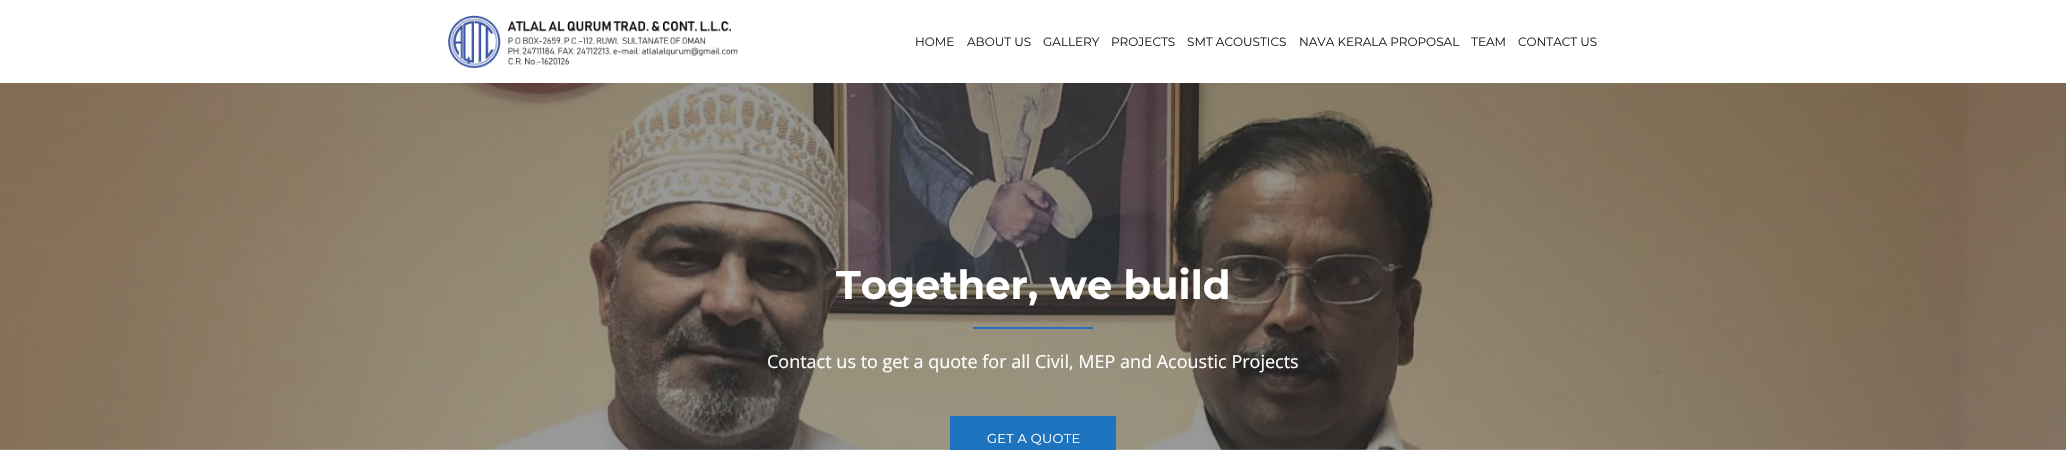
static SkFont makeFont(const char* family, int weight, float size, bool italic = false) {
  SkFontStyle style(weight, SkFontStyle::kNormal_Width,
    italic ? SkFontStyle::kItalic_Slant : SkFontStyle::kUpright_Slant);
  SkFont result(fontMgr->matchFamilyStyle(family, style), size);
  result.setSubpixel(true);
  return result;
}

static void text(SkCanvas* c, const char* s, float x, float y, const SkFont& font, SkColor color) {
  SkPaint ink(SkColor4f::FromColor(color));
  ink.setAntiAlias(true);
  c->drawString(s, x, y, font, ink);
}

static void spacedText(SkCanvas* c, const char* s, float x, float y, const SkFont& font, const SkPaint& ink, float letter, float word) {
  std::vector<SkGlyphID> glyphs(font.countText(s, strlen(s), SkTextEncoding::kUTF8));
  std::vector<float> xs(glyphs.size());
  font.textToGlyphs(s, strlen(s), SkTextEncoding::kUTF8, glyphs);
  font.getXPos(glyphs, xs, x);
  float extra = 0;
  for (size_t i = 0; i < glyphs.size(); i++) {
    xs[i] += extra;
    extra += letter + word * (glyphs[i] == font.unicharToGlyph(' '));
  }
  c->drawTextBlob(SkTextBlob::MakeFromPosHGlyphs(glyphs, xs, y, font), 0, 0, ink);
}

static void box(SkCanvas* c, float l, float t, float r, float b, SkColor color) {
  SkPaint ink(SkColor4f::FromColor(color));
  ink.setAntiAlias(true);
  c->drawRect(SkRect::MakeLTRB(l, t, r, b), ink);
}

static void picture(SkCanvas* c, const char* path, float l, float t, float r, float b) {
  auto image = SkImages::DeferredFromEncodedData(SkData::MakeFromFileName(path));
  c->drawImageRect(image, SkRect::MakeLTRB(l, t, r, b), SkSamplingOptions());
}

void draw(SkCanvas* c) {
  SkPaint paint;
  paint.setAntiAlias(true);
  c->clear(0xffffffff);
  picture(c, "img_01.png", 448, 15, 738, 68);
  SkFont face1 = makeFont("Montserrat", 400, 12);
  text(c, "HOME", 915, 46, face1, 0xff222222);
  text(c, "ABOUT US", 967, 46, face1, 0xff222222);
  text(c, "GALLERY", 1043, 46, face1, 0xff222222);
  text(c, "PROJECTS", 1111, 46, face1, 0xff222222);
  text(c, "SMT ACOUSTICS", 1187, 46, face1, 0xff222222);
  text(c, "NAVA KERALA PROPOSAL", 1299, 46, face1, 0xff222222);
  text(c, "TEAM", 1471, 46, face1, 0xff222222);
  text(c, "CONTACT US", 1518, 46, face1, 0xff222222);
  picture(c, "img_02.png", 0, 83, 2066, 450);
  SkFont face2 = makeFont("Montserrat", 700, 40);
  text(c, "Together, we build", 836, 299, face2, 0xffffffff);
  box(c, 973, 327, 1093, 329, 0xff1e73be);
  SkFont face3 = makeFont("Open Sans", 400, 18);
  text(c, "Contact us to get a quote for all Civil, MEP and Acoustic Projects", 767, 368, face3, 0xffffffff);
  box(c, 950, 416, 1116, 450, 0xff1e73be);
  SkFont face4 = makeFont("Montserrat", 400, 13);
  paint.setColor(0xffffffff);
  spacedText(c, "GET A QUOTE", 987, 443, face4, paint, 0.25f, 0);
}
